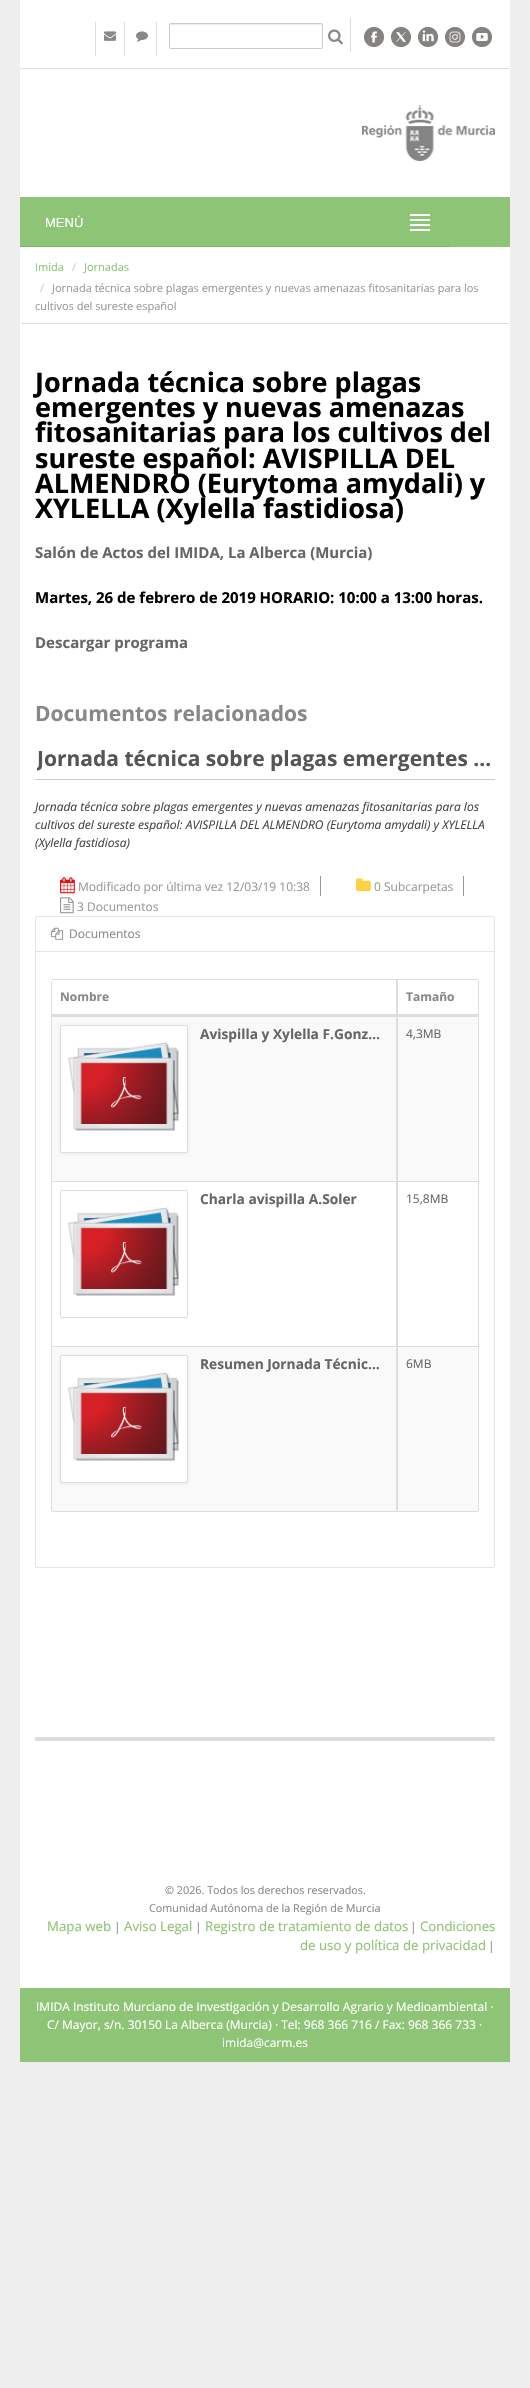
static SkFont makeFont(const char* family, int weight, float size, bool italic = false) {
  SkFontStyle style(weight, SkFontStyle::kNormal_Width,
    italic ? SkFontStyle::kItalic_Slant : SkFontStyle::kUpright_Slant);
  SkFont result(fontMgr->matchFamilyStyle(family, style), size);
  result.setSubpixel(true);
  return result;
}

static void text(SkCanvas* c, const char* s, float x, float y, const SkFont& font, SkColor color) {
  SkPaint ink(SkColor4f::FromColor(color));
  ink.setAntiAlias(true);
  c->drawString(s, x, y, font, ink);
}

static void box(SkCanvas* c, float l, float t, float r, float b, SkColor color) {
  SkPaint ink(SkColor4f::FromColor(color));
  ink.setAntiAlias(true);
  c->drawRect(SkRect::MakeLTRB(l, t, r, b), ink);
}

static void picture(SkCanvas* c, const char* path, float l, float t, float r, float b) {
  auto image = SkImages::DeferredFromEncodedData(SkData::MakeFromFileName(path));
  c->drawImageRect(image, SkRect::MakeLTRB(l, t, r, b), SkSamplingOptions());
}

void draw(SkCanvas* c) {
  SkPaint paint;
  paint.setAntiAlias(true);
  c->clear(0xffeeeeee);
  box(c, 20, 0, 510, 197, 0xffffffff);
  box(c, 20, 68, 510, 69, 0xffdddddd);
  box(c, 124, 22, 125, 56, 0xffdddddd);
  box(c, 95, 22, 96, 56, 0xffdddddd);
  picture(c, "img_01.png", 104, 31, 116, 41);
  box(c, 156, 22, 157, 56, 0xffdddddd);
  picture(c, "img_02.png", 136, 31, 148, 42);
  box(c, 350, 18, 351, 52, 0xffdddddd);
  paint.setColor(0xffececec);
  c->drawPath(SkPathBuilder().moveTo(171, 25).lineTo(321, 25).cubicTo(322, 25, 322, 25, 322, 26).lineTo(322, 24).lineTo(171, 24).cubicTo(170, 24, 170, 25, 170, 26).cubicTo(170, 25, 170, 25, 171, 25).close().detach(), paint);
  paint.setStyle(SkPaint::kStroke_Style);
  paint.setStrokeWidth(1);
  paint.setColor(0xffcccccc);
  c->drawRoundRect(SkRect::MakeLTRB(169.5f, 23.5f, 322.5f, 48.5f), 1.5f, 1.5f, paint);
  picture(c, "img_03.png", 328, 29, 343, 45);
  picture(c, "img_04.png", 364, 27, 384, 47);
  picture(c, "img_05.png", 391, 27, 411, 47);
  picture(c, "img_06.png", 418, 27, 438, 47);
  picture(c, "img_07.png", 445, 27, 465, 47);
  picture(c, "img_08.png", 472, 27, 492, 47);
  picture(c, "img_09.png", 362, 105, 495, 161);
  box(c, 20, 247, 510, 1988, 0xffffffff);
  box(c, 20, 197, 510, 247, 0xff8ec475);
  box(c, 20, 246, 450, 247, 0xff80b069);
  SkFont face1 = makeFont("Liberation Sans", 400, 13);
  text(c, "MENÚ", 45, 227, face1, 0xffffffff);
  box(c, 410, 214, 430, 216, 0xffffffff);
  box(c, 410, 219, 430, 221, 0xffffffff);
  box(c, 410, 224, 430, 226, 0xffffffff);
  box(c, 410, 229, 430, 231, 0xffffffff);
  box(c, 21, 323, 509, 324, 0xffdddddd);
  SkFont face2 = makeFont("Open Sans", 400, 11);
  text(c, "Imida", 35, 271, face2, 0xff8ec475);
  text(c, "/", 72, 271, face2, 0xffcccccc);
  text(c, "Jornadas", 84, 271, face2, 0xff8ec475);
  text(c, "/", 40, 292, face2, 0xffcccccc);
  text(c, "Jornada técnica sobre plagas emergentes y nuevas amenazas fitosanitarias para los", 52, 292, face2, 0xff999999);
  text(c, "cultivos del sureste español", 35, 310, face2, 0xff999999);
  SkFont face3 = makeFont("Open Sans", 700, 27);
  text(c, "Jornada técnica sobre plagas", 35, 392, face3, 0xff000000);
  text(c, "emergentes y nuevas amenazas", 35, 417, face3, 0xff000000);
  text(c, "fitosanitarias para los cultivos del", 35, 442, face3, 0xff000000);
  text(c, "sureste español: AVISPILLA DEL", 35, 468, face3, 0xff000000);
  text(c, "ALMENDRO (Eurytoma amydali) y", 35, 493, face3, 0xff000000);
  text(c, "XYLELLA (Xylella fastidiosa)", 35, 518, face3, 0xff000000);
  SkFont face4 = makeFont("Open Sans", 700, 15);
  text(c, "Salón de Actos del IMIDA, La Alberca (Murcia)", 35, 558, face4, 0xff666666);
  text(c, "Martes, 26 de febrero de 2019 HORARIO: 10:00 a 13:00 horas.", 35, 603, face4, 0xff000000);
  text(c, "Descargar programa", 35, 648, face4, 0xff666666);
  SkFont face5 = makeFont("Open Sans", 700, 21);
  text(c, "Documentos relacionados", 35, 721, face5, 0xff888888);
  box(c, 35, 779, 495, 780, 0xffc8c9ca);
  c->save();
  c->clipRect(SkRect::MakeLTRB(37, 740, 493, 776));
  text(c, "Jornada técnica sobre plagas emergentes …", 37, 766, face5, 0xff555555);
  c->restore();
  SkFont face6 = makeFont("Open Sans", 400, 12, true);
  text(c, "Jornada técnica sobre plagas emergentes y nuevas amenazas fitosanitarias para los", 35, 811, face6, 0xff444444);
  text(c, "cultivos del sureste español: AVISPILLA DEL ALMENDRO (Eurytoma amydali) y XYLELLA", 35, 829, face6, 0xff444444);
  text(c, "(Xylella fastidiosa)", 35, 847, face6, 0xff444444);
  box(c, 320, 876, 321, 896, 0xff999999);
  picture(c, "img_10.png", 60, 877, 75, 894);
  SkFont face7 = makeFont("Open Sans", 400, 12);
  text(c, "Modificado por última vez 12/03/19 10:38", 78, 891, face7, 0xff999999);
  box(c, 463, 876, 464, 896, 0xff999999);
  picture(c, "img_11.png", 356, 878, 371, 891);
  text(c, "0 Subcarpetas", 374, 891, face7, 0xff999999);
  picture(c, "img_12.png", 60, 897, 74, 914);
  text(c, "3 Documentos", 77, 911, face7, 0xff999999);
  paint.setColor(0xffe5e5e5);
  c->drawRoundRect(SkRect::MakeLTRB(35.5f, 916.5f, 494.5f, 1567.5f), 1.5f, 1.5f, paint);
  picture(c, "img_13.png", 51, 927, 63, 940);
  text(c, "Documentos", 69, 938, face7, 0xff888888);
  box(c, 36, 951, 494, 952, 0xffe5e5e5);
  box(c, 52, 979, 478, 980, 0xffdddddd);
  box(c, 478, 980, 479, 1511, 0xffdddddd);
  box(c, 52, 1511, 478, 1512, 0xffdddddd);
  box(c, 396, 980, 397, 1016, 0xffdddddd);
  box(c, 51, 1014, 478, 1016, 0xffdddddd);
  box(c, 51, 981, 52, 1016, 0xffdddddd);
  SkFont face8 = makeFont("Open Sans", 700, 12);
  text(c, "Nombre", 60, 1001, face8, 0xff888888);
  box(c, 397, 980, 398, 1016, 0xffdddddd);
  text(c, "Tamaño", 406, 1001, face8, 0xff888888);
  box(c, 52, 1017, 396, 1181, 0xfff9f9f9);
  box(c, 51, 1016, 478, 1017, 0xffdddddd);
  box(c, 396, 1016, 398, 1181, 0xffdddddd);
  box(c, 51, 1016, 52, 1181, 0xffdddddd);
  paint.setStyle(SkPaint::kFill_Style);
  paint.setColor(0x0f000000);
  paint.setMaskFilter(SkMaskFilter::MakeBlur(kNormal_SkBlurStyle, 1.5f));
  c->drawRoundRect(SkRect::MakeLTRB(60, 1026, 188, 1154), 2, 2, paint);
  paint.setMaskFilter(nullptr);
  paint.setColor(0xffffffff);
  c->drawRoundRect(SkRect::MakeLTRB(60.5f, 1025.5f, 187.5f, 1152.5f), 1.5f, 1.5f, paint);
  paint.setStyle(SkPaint::kStroke_Style);
  paint.setColor(0xffdddddd);
  c->drawRoundRect(SkRect::MakeLTRB(60.5f, 1025.5f, 187.5f, 1152.5f), 1.5f, 1.5f, paint);
  picture(c, "img_14.png", 67, 1042, 180, 1131);
  SkFont face9 = makeFont("Open Sans", 700, 13.75f);
  text(c, "Avispilla y Xylella F.Gonz…", 200, 1039, face9, 0xff666666);
  box(c, 398, 1017, 478, 1181, 0xfff9f9f9);
  text(c, "4,3MB", 406, 1038, face7, 0xff666666);
  box(c, 51, 1181, 478, 1182, 0xffdddddd);
  box(c, 396, 1181, 398, 1346, 0xffdddddd);
  box(c, 51, 1181, 52, 1346, 0xffdddddd);
  c->drawRoundRect(SkRect::MakeLTRB(60.5f, 1190.5f, 187.5f, 1317.5f), 1.5f, 1.5f, paint);
  picture(c, "img_14.png", 67, 1207, 180, 1296);
  text(c, "Charla avispilla A.Soler", 200, 1204, face9, 0xff666666);
  text(c, "15,8MB", 406, 1203, face7, 0xff666666);
  box(c, 52, 1347, 396, 1511, 0xfff9f9f9);
  box(c, 51, 1346, 478, 1347, 0xffdddddd);
  box(c, 396, 1346, 398, 1511, 0xffdddddd);
  box(c, 51, 1346, 52, 1511, 0xffdddddd);
  paint.setStyle(SkPaint::kFill_Style);
  paint.setColor(0x0f000000);
  paint.setMaskFilter(SkMaskFilter::MakeBlur(kNormal_SkBlurStyle, 1.5f));
  c->drawRoundRect(SkRect::MakeLTRB(60, 1356, 188, 1484), 2, 2, paint);
  paint.setMaskFilter(nullptr);
  paint.setColor(0xffffffff);
  c->drawRoundRect(SkRect::MakeLTRB(60.5f, 1355.5f, 187.5f, 1482.5f), 1.5f, 1.5f, paint);
  paint.setStyle(SkPaint::kStroke_Style);
  paint.setColor(0xffdddddd);
  c->drawRoundRect(SkRect::MakeLTRB(60.5f, 1355.5f, 187.5f, 1482.5f), 1.5f, 1.5f, paint);
  picture(c, "img_14.png", 67, 1372, 180, 1461);
  text(c, "Resumen Jornada Técnic…", 200, 1369, face9, 0xff666666);
  box(c, 398, 1347, 478, 1511, 0xfff9f9f9);
  text(c, "6MB", 406, 1368, face7, 0xff666666);
  box(c, 35, 1737, 495, 1741, 0xffdddddd);
  SkFont face10 = makeFont("Open Sans", 400, 10.8f);
  text(c, "© 2026. Todos los derechos reservados.", 165, 1894, face10, 0xff888888);
  text(c, "Comunidad Autónoma de la Región de Murcia", 149, 1912, face10, 0xff888888);
  SkFont face11 = makeFont("Open Sans", 400, 13.25f);
  text(c, "Mapa web", 47, 1931, face11, 0xff8ec475);
  text(c, "|", 114, 1931, face7, 0xff888888);
  text(c, "Aviso Legal", 124, 1931, face11, 0xff8ec475);
  text(c, "|", 195, 1931, face7, 0xff888888);
  text(c, "Registro de tratamiento de datos", 205, 1931, face11, 0xff8ec475);
  text(c, "|", 410, 1931, face7, 0xff888888);
  text(c, "Condiciones", 420, 1931, face11, 0xff8ec475);
  text(c, "de uso y política de privacidad", 300, 1950, face11, 0xff8ec475);
  text(c, "|", 488, 1950, face7, 0xff888888);
  box(c, 20, 1988, 510, 2062, 0xff8ec475);
  text(c, "IMIDA Instituto Murciano de Investigación y Desarrollo Agrario y Medioambiental ·", 36, 2011, face7, 0xffffffff);
  text(c, "C/ Mayor, s/n. 30150 La Alberca (Murcia) · Tel: 968 366 716 / Fax: 968 366 733 ·", 47, 2029, face7, 0xffffffff);
  text(c, "imida@carm.es", 222, 2047, face7, 0xffffffff);
}
